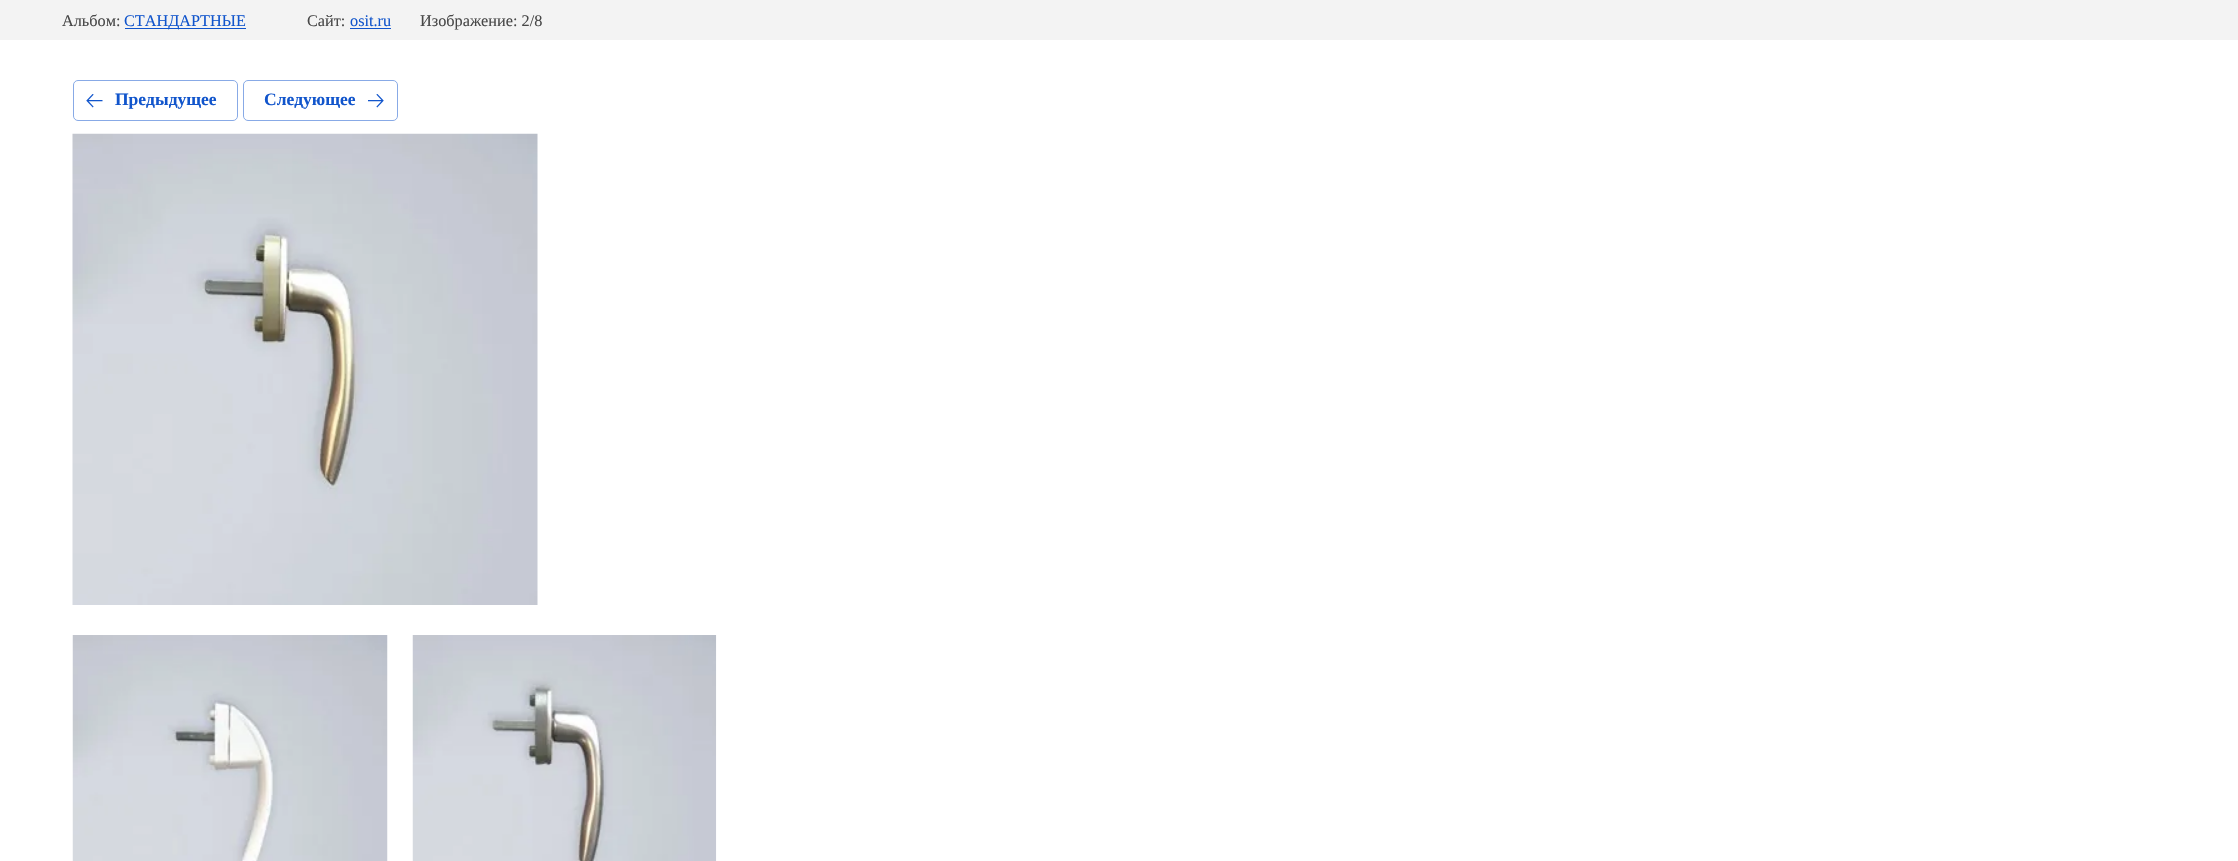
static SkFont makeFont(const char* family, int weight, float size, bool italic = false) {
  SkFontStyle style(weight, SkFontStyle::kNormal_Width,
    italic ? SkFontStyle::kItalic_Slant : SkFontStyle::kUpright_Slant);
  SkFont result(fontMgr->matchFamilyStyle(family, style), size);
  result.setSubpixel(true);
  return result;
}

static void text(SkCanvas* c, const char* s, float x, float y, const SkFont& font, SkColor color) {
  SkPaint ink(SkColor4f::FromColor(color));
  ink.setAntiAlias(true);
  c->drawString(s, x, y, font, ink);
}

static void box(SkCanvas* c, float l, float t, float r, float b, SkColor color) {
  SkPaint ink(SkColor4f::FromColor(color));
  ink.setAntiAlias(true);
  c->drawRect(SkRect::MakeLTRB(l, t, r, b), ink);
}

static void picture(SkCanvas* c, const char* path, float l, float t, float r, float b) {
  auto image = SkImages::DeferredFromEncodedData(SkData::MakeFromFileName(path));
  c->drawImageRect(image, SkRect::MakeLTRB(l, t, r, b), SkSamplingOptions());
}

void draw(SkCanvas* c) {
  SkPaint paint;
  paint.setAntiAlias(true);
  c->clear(0xffffffff);
  box(c, 0, 0, 2238, 40, 0xfff3f3f3);
  SkFont face1 = makeFont("Liberation Serif", 400, 16.25f);
  text(c, "Альбом:", 62, 26, face1, 0xff484848);
  box(c, 125, 28, 246, 29, 0xff1155cc);
  text(c, "СТАНДАРТНЫЕ", 124, 26, face1, 0xff1155cc);
  text(c, "Сайт:", 307, 26, face1, 0xff484848);
  text(c, "osit.ru", 350, 26, face1, 0xff1155cc);
  box(c, 350, 28, 391, 29, 0xff1155cc);
  text(c, "Изображение: 2/8", 420, 26, face1, 0xff484848);
  paint.setStyle(SkPaint::kStroke_Style);
  paint.setStrokeWidth(1);
  paint.setColor(0xff88aae6);
  c->drawRoundRect(SkRect::MakeLTRB(73.5f, 80.5f, 237.5f, 120.5f), 4.5f, 4.5f, paint);
  picture(c, "img_01.png", 86, 94, 103, 108);
  SkFont face2 = makeFont("Liberation Serif", 700, 17.5f);
  text(c, "Предыдущее", 115, 105, face2, 0xff1155cc);
  c->drawRoundRect(SkRect::MakeLTRB(243.5f, 80.5f, 397.5f, 120.5f), 4.5f, 4.5f, paint);
  text(c, "Следующее", 264, 105, face2, 0xff1155cc);
  picture(c, "img_02.png", 368, 94, 384, 108);
  picture(c, "img_03.png", 72, 133, 538, 605);
  picture(c, "img_04.png", 72, 635, 388, 861);
  picture(c, "img_05.png", 412, 635, 717, 861);
}
